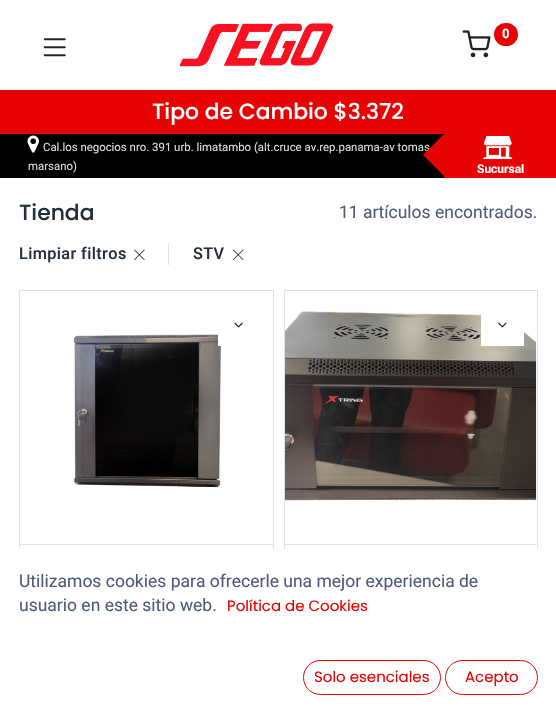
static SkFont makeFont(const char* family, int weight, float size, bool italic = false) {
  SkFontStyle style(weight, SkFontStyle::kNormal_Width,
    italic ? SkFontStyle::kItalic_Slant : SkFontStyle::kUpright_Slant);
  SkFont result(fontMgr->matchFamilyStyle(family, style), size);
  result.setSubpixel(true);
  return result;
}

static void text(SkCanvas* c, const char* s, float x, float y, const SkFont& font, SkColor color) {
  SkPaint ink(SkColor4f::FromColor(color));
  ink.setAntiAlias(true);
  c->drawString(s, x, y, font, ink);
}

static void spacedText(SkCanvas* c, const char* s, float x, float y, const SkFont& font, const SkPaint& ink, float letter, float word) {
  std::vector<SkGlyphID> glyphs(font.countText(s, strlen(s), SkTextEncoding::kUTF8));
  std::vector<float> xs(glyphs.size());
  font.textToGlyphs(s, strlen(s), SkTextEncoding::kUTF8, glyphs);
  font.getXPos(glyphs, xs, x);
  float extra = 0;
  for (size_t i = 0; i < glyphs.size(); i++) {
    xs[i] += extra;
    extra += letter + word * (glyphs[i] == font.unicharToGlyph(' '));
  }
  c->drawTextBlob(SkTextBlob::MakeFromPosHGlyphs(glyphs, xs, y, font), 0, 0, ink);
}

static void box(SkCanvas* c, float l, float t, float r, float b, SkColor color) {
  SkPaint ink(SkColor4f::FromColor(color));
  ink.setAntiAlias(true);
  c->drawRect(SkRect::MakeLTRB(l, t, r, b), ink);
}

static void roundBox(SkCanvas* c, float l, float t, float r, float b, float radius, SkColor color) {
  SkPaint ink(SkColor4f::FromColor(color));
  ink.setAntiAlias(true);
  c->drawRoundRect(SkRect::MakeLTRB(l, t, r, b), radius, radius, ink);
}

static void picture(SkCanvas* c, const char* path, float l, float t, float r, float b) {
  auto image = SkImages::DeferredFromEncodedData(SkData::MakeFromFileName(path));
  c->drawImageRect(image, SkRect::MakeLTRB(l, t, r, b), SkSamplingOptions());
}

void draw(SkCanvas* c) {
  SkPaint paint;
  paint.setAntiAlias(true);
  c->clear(0xffffffff);
  box(c, 0, 90, 556, 134, 0xffe70303);
  c->save();
  c->clipRect(SkRect::MakeLTRB(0, 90, 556, 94));
  paint.setColor(0x12000000);
  paint.setMaskFilter(SkMaskFilter::MakeBlur(kNormal_SkBlurStyle, 2.5f));
  c->drawRect(SkRect::MakeLTRB(0, 3, 556, 93), paint);
  paint.setMaskFilter(nullptr);
  c->restore();
  picture(c, "img_01.png", 179, 23, 333, 67);
  picture(c, "img_02.png", 462, 30, 491, 58);
  roundBox(c, 494, 23, 518, 46, 11.5f, 0xffe70303);
  SkFont face1 = makeFont("Roboto", 700, 13);
  text(c, "0", 502, 38, face1, 0xffffffff);
  picture(c, "img_03.png", 43, 38, 66, 57);
  SkFont face2 = makeFont("Poppins", 500, 21.9f);
  text(c, "Tipo de Cambio $3.372", 152, 119, face2, 0xffffffff);
  box(c, 0, 134, 444, 178, 0xff000000);
  picture(c, "img_04.png", 27, 135, 39, 153);
  SkFont face3 = makeFont("Roboto", 400, 11.4f);
  text(c, "Cal.los negocios nro. 391 urb. limatambo (alt.cruce av.rep.panama-av tomas", 43, 151, face3, 0xffdddddd);
  text(c, "marsano)", 28, 170, face3, 0xffdddddd);
  box(c, 444, 134, 556, 178, 0xffe70303);
  paint.setColor(0xffe70303);
  c->drawPath(SkPathBuilder().moveTo(444, 134).lineTo(465, 155).lineTo(444, 176).lineTo(423, 155).close().detach(), paint);
  picture(c, "img_05.png", 483, 135, 513, 160);
  SkFont face4 = makeFont("Roboto", 700, 12);
  text(c, "Sucursal", 477, 173, face4, 0xffffffff);
  text(c, "Tienda", 19, 220, face2, 0xff232f3e);
  SkFont face5 = makeFont("Roboto", 400, 17.5f);
  text(c, "11 artículos encontrados.", 339, 218, face5, 0xff4d5b7c);
  box(c, 168, 243, 169, 265, 0xffdee2e6);
  SkFont face6 = makeFont("Roboto", 500, 16.25f);
  paint.setColor(0xff232f3e);
  spacedText(c, "Limpiar filtros", 19, 259, face6, paint, 0.4f, 0);
  picture(c, "img_06.png", 134, 249, 145, 261);
  spacedText(c, "STV", 193, 259, face6, paint, 0.4f, 0);
  picture(c, "img_07.png", 232, 249, 244, 261);
  paint.setStyle(SkPaint::kStroke_Style);
  paint.setStrokeWidth(1);
  paint.setColor(0xffdee2e6);
  c->drawRect(SkRect::MakeLTRB(19.5f, 290.5f, 273.5f, 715.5f), paint);
  picture(c, "img_08.png", 73, 333, 223, 488);
  box(c, 218, 333, 223, 346, 0xffffffff);
  picture(c, "img_09.png", 234, 322, 243, 328);
  box(c, 20, 544, 273, 545, 0xffdee2e6);
  c->drawRect(SkRect::MakeLTRB(284.5f, 290.5f, 537.5f, 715.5f), paint);
  picture(c, "img_10.png", 285, 311, 537, 501);
  box(c, 481, 314, 524, 346, 0xffffffff);
  picture(c, "img_11.png", 498, 322, 507, 328);
  box(c, 285, 544, 536, 545, 0xffdee2e6);
  box(c, 19, 549, 538, 715, 0xffffffff);
  text(c, "Utilizamos cookies para ofrecerle una mejor experiencia de", 19, 587, face5, 0xff4d5b7c);
  text(c, "usuario en este sitio web.", 19, 611, face5, 0xff4d5b7c);
  SkFont face7 = makeFont("Poppins", 400, 15);
  text(c, "Política de Cookies", 227, 611, face7, 0xffe70303);
  paint.setColor(0xffe70303);
  c->drawRoundRect(SkRect::MakeLTRB(303.5f, 660.5f, 440.5f, 694.5f), 17, 17, paint);
  text(c, "Solo esenciales", 314, 682, face7, 0xffe70303);
  c->drawRoundRect(SkRect::MakeLTRB(445.5f, 660.5f, 537.5f, 694.5f), 17, 17, paint);
  text(c, "Acepto", 465, 682, face7, 0xffe70303);
}
